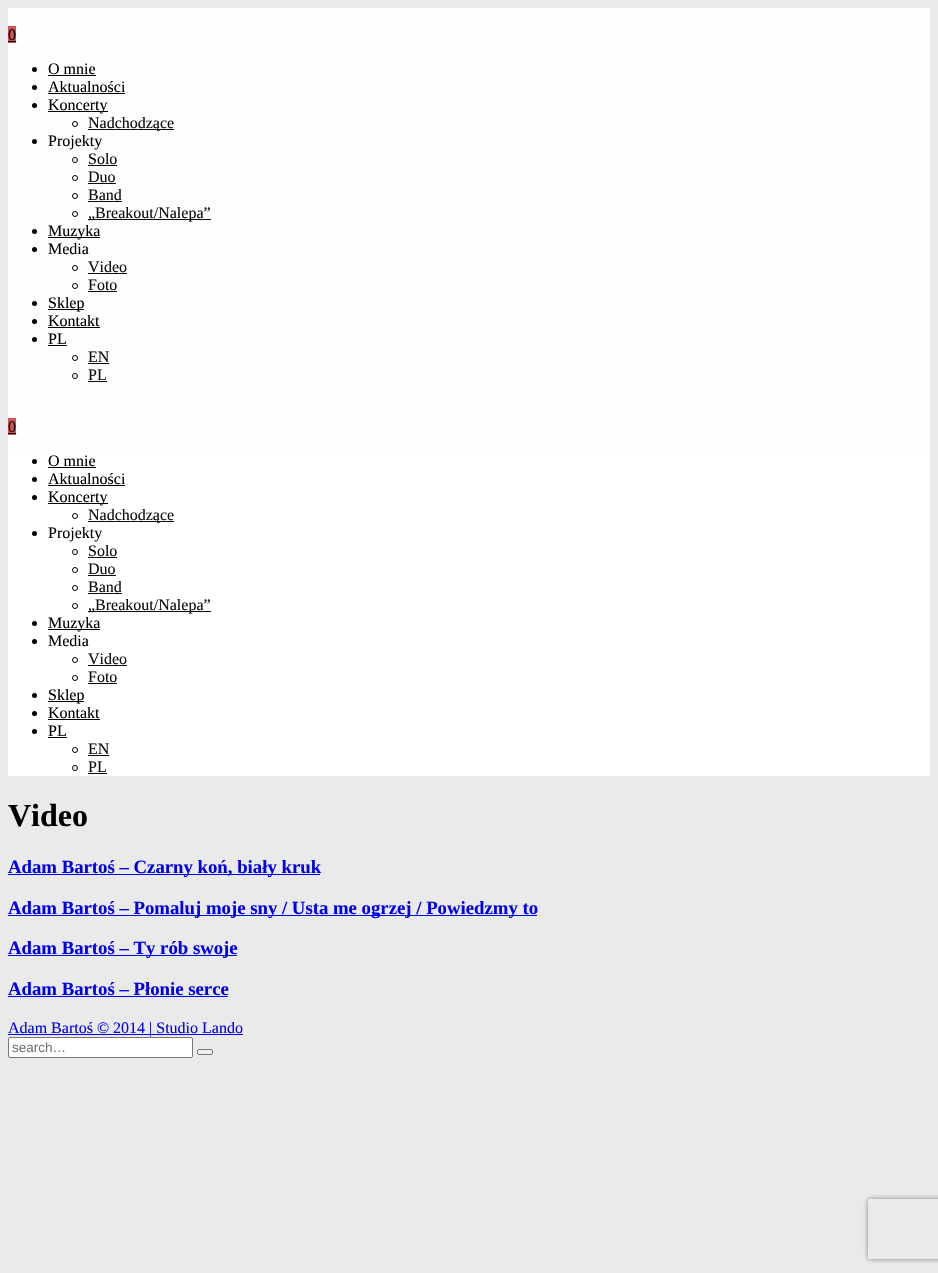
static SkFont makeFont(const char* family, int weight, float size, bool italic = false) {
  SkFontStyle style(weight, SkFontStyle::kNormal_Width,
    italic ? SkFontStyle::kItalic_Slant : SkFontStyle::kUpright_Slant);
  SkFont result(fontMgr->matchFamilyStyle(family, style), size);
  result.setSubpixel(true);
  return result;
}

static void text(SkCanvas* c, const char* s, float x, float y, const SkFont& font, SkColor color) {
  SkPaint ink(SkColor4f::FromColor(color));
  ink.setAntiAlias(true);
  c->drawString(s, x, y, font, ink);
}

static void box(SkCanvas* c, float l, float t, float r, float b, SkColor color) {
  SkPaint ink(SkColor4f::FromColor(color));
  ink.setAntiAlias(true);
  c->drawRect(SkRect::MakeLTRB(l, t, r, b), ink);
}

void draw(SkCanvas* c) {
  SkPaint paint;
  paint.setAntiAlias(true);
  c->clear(0xffeaeaea);
  box(c, 8, 8, 930, 452, 0xfffdfdfd);
  box(c, 8, 26, 16, 43, 0xffd15254);
  SkFont face1 = makeFont("Liberation Serif", 400, 16);
  text(c, "0", 8, 40, face1, 0xff000000);
  box(c, 8, 41, 16, 42, 0xff000000);
  paint.setColor(0xff000000);
  c->drawCircle(34.5f, 69.5f, 2.5f, paint);
  text(c, "O mnie", 48, 74, face1, 0xff000000);
  box(c, 48, 75, 96, 76, 0xff000000);
  c->drawCircle(34.5f, 87.5f, 2.5f, paint);
  text(c, "Aktualności", 48, 92, face1, 0xff000000);
  box(c, 48, 93, 125, 94, 0xff000000);
  c->drawCircle(34.5f, 105.5f, 2.5f, paint);
  box(c, 48, 111, 108, 112, 0xff000000);
  text(c, "Koncerty", 48, 110, face1, 0xff000000);
  paint.setStyle(SkPaint::kStroke_Style);
  paint.setStrokeWidth(1);
  c->drawCircle(75, 124, 2.5f, paint);
  box(c, 88, 129, 174, 130, 0xff0c0c0c);
  text(c, "Nadchodzące", 88, 128, face1, 0xff0c0c0c);
  paint.setStyle(SkPaint::kFill_Style);
  c->drawCircle(34.5f, 141.5f, 2.5f, paint);
  text(c, "Projekty", 48, 146, face1, 0xff000000);
  paint.setStyle(SkPaint::kStroke_Style);
  c->drawCircle(75, 160, 2.5f, paint);
  text(c, "Solo", 88, 164, face1, 0xff0c0c0c);
  box(c, 88, 165, 117, 166, 0xff0c0c0c);
  c->drawCircle(75, 178, 2.5f, paint);
  text(c, "Duo", 88, 182, face1, 0xff0c0c0c);
  box(c, 88, 183, 116, 184, 0xff0c0c0c);
  c->drawCircle(75, 196, 2.5f, paint);
  text(c, "Band", 88, 200, face1, 0xff0c0c0c);
  box(c, 88, 201, 122, 202, 0xff0c0c0c);
  c->drawCircle(75, 214, 2.5f, paint);
  box(c, 88, 219, 211, 220, 0xff0c0c0c);
  text(c, "„Breakout/Nalepa”", 88, 218, face1, 0xff0c0c0c);
  paint.setStyle(SkPaint::kFill_Style);
  c->drawCircle(34.5f, 231.5f, 2.5f, paint);
  box(c, 48, 237, 100, 238, 0xff000000);
  text(c, "Muzyka", 48, 236, face1, 0xff000000);
  c->drawCircle(34.5f, 249.5f, 2.5f, paint);
  text(c, "Media", 48, 254, face1, 0xff000000);
  paint.setStyle(SkPaint::kStroke_Style);
  c->drawCircle(75, 268, 2.5f, paint);
  text(c, "Video", 88, 272, face1, 0xff0c0c0c);
  box(c, 88, 273, 127, 274, 0xff0c0c0c);
  c->drawCircle(75, 286, 2.5f, paint);
  text(c, "Foto", 88, 290, face1, 0xff0c0c0c);
  box(c, 88, 291, 117, 292, 0xff0c0c0c);
  paint.setStyle(SkPaint::kFill_Style);
  c->drawCircle(34.5f, 303.5f, 2.5f, paint);
  box(c, 48, 309, 84, 310, 0xff000000);
  text(c, "Sklep", 48, 308, face1, 0xff000000);
  c->drawCircle(34.5f, 321.5f, 2.5f, paint);
  text(c, "Kontakt", 48, 326, face1, 0xff000000);
  box(c, 48, 327, 100, 328, 0xff000000);
  c->drawCircle(34.5f, 339.5f, 2.5f, paint);
  text(c, "PL", 48, 344, face1, 0xff000000);
  box(c, 48, 345, 67, 346, 0xff000000);
  paint.setStyle(SkPaint::kStroke_Style);
  c->drawCircle(75, 358, 2.5f, paint);
  text(c, "EN", 88, 362, face1, 0xff0c0c0c);
  box(c, 88, 363, 109, 364, 0xff0c0c0c);
  c->drawCircle(75, 376, 2.5f, paint);
  text(c, "PL", 88, 380, face1, 0xff0c0c0c);
  box(c, 88, 381, 107, 382, 0xff0c0c0c);
  box(c, 8, 418, 16, 435, 0xffd15254);
  text(c, "0", 8, 432, face1, 0xff0c0c0c);
  box(c, 8, 433, 16, 434, 0xff0c0c0c);
  box(c, 8, 452, 930, 776, 0xffffffff);
  paint.setStyle(SkPaint::kFill_Style);
  c->drawCircle(34.5f, 461.5f, 2.5f, paint);
  text(c, "O mnie", 48, 466, face1, 0xff000000);
  box(c, 48, 467, 96, 468, 0xff000000);
  c->drawCircle(34.5f, 479.5f, 2.5f, paint);
  text(c, "Aktualności", 48, 484, face1, 0xff000000);
  box(c, 48, 485, 125, 486, 0xff000000);
  c->drawCircle(34.5f, 497.5f, 2.5f, paint);
  box(c, 48, 503, 108, 504, 0xff000000);
  text(c, "Koncerty", 48, 502, face1, 0xff000000);
  paint.setStyle(SkPaint::kStroke_Style);
  c->drawCircle(75, 516, 2.5f, paint);
  box(c, 88, 521, 174, 522, 0xff0c0c0c);
  text(c, "Nadchodzące", 88, 520, face1, 0xff0c0c0c);
  paint.setStyle(SkPaint::kFill_Style);
  c->drawCircle(34.5f, 533.5f, 2.5f, paint);
  text(c, "Projekty", 48, 538, face1, 0xff000000);
  paint.setStyle(SkPaint::kStroke_Style);
  c->drawCircle(75, 552, 2.5f, paint);
  text(c, "Solo", 88, 556, face1, 0xff0c0c0c);
  box(c, 88, 557, 117, 558, 0xff0c0c0c);
  c->drawCircle(75, 570, 2.5f, paint);
  text(c, "Duo", 88, 574, face1, 0xff0c0c0c);
  box(c, 88, 575, 116, 576, 0xff0c0c0c);
  c->drawCircle(75, 588, 2.5f, paint);
  text(c, "Band", 88, 592, face1, 0xff0c0c0c);
  box(c, 88, 593, 122, 594, 0xff0c0c0c);
  c->drawCircle(75, 606, 2.5f, paint);
  box(c, 88, 611, 211, 612, 0xff0c0c0c);
  text(c, "„Breakout/Nalepa”", 88, 610, face1, 0xff0c0c0c);
  paint.setStyle(SkPaint::kFill_Style);
  c->drawCircle(34.5f, 623.5f, 2.5f, paint);
  box(c, 48, 629, 100, 630, 0xff000000);
  text(c, "Muzyka", 48, 628, face1, 0xff000000);
  c->drawCircle(34.5f, 641.5f, 2.5f, paint);
  text(c, "Media", 48, 646, face1, 0xff000000);
  paint.setStyle(SkPaint::kStroke_Style);
  c->drawCircle(75, 660, 2.5f, paint);
  text(c, "Video", 88, 664, face1, 0xff0c0c0c);
  box(c, 88, 665, 127, 666, 0xff0c0c0c);
  c->drawCircle(75, 678, 2.5f, paint);
  text(c, "Foto", 88, 682, face1, 0xff0c0c0c);
  box(c, 88, 683, 117, 684, 0xff0c0c0c);
  paint.setStyle(SkPaint::kFill_Style);
  c->drawCircle(34.5f, 695.5f, 2.5f, paint);
  box(c, 48, 701, 84, 702, 0xff000000);
  text(c, "Sklep", 48, 700, face1, 0xff000000);
  c->drawCircle(34.5f, 713.5f, 2.5f, paint);
  text(c, "Kontakt", 48, 718, face1, 0xff000000);
  box(c, 48, 719, 100, 720, 0xff000000);
  c->drawCircle(34.5f, 731.5f, 2.5f, paint);
  text(c, "PL", 48, 736, face1, 0xff000000);
  box(c, 48, 737, 67, 738, 0xff000000);
  paint.setStyle(SkPaint::kStroke_Style);
  c->drawCircle(75, 750, 2.5f, paint);
  text(c, "EN", 88, 754, face1, 0xff0c0c0c);
  box(c, 88, 755, 109, 756, 0xff0c0c0c);
  c->drawCircle(75, 768, 2.5f, paint);
  text(c, "PL", 88, 772, face1, 0xff0c0c0c);
  box(c, 88, 773, 107, 774, 0xff0c0c0c);
  SkFont face2 = makeFont("Liberation Serif", 700, 32);
  text(c, "Video", 8, 826, face2, 0xff000000);
  box(c, 8, 874, 320, 875, 0xff0000ee);
  SkFont face3 = makeFont("Liberation Serif", 700, 18.75f);
  text(c, "Adam Bartoś – Czarny koń, biały kruk", 8, 873, face3, 0xff0000ee);
  box(c, 8, 915, 537, 916, 0xff0000ee);
  text(c, "Adam Bartoś – Pomaluj moje sny / Usta me ogrzej / Powiedzmy to", 8, 914, face3, 0xff0000ee);
  box(c, 8, 955, 237, 956, 0xff0000ee);
  text(c, "Adam Bartoś – Ty rób swoje", 8, 954, face3, 0xff0000ee);
  text(c, "Adam Bartoś – Płonie serce", 8, 995, face3, 0xff0000ee);
  box(c, 8, 996, 228, 997, 0xff0000ee);
  box(c, 8, 1034, 243, 1035, 0xff0000ee);
  text(c, "Adam Bartoś © 2014 | Studio Lando", 8, 1033, face1, 0xff0000ee);
  paint.setStyle(SkPaint::kFill_Style);
  paint.setColor(0xffffffff);
  c->drawRoundRect(SkRect::MakeLTRB(8.5f, 1037.5f, 192.5f, 1057.5f), 1.5f, 1.5f, paint);
  paint.setStyle(SkPaint::kStroke_Style);
  paint.setColor(0xff767676);
  c->drawRoundRect(SkRect::MakeLTRB(8.5f, 1037.5f, 192.5f, 1057.5f), 1.5f, 1.5f, paint);
  SkFont face4 = makeFont("Liberation Sans", 400, 13.5f);
  text(c, "search…", 12, 1052, face4, 0xff757575);
  paint.setStyle(SkPaint::kFill_Style);
  paint.setColor(0xffefefef);
  c->drawRoundRect(SkRect::MakeLTRB(197.5f, 1049.5f, 212.5f, 1054.5f), 1.5f, 1.5f, paint);
  paint.setStyle(SkPaint::kStroke_Style);
  paint.setColor(0xff767676);
  c->drawRoundRect(SkRect::MakeLTRB(197.5f, 1049.5f, 212.5f, 1054.5f), 1.5f, 1.5f, paint);
  c->save();
  c->clipPath(SkPathBuilder(SkPathFillType::kEvenOdd).moveTo(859, 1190).lineTo(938, 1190).lineTo(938, 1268).lineTo(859, 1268).close().moveTo(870, 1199).lineTo(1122, 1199).cubicTo(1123, 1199, 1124, 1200, 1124, 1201).lineTo(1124, 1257).cubicTo(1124, 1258, 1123, 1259, 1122, 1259).lineTo(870, 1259).cubicTo(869, 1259, 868, 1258, 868, 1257).lineTo(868, 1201).cubicTo(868, 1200, 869, 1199, 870, 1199).close().detach(), true);
  paint.setStyle(SkPaint::kFill_Style);
  paint.setColor(0xff808080);
  paint.setMaskFilter(SkMaskFilter::MakeBlur(kNormal_SkBlurStyle, 2.5f));
  c->drawRoundRect(SkRect::MakeLTRB(868, 1199, 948, 1259), 2, 2, paint);
  paint.setMaskFilter(nullptr);
  c->restore();
}
